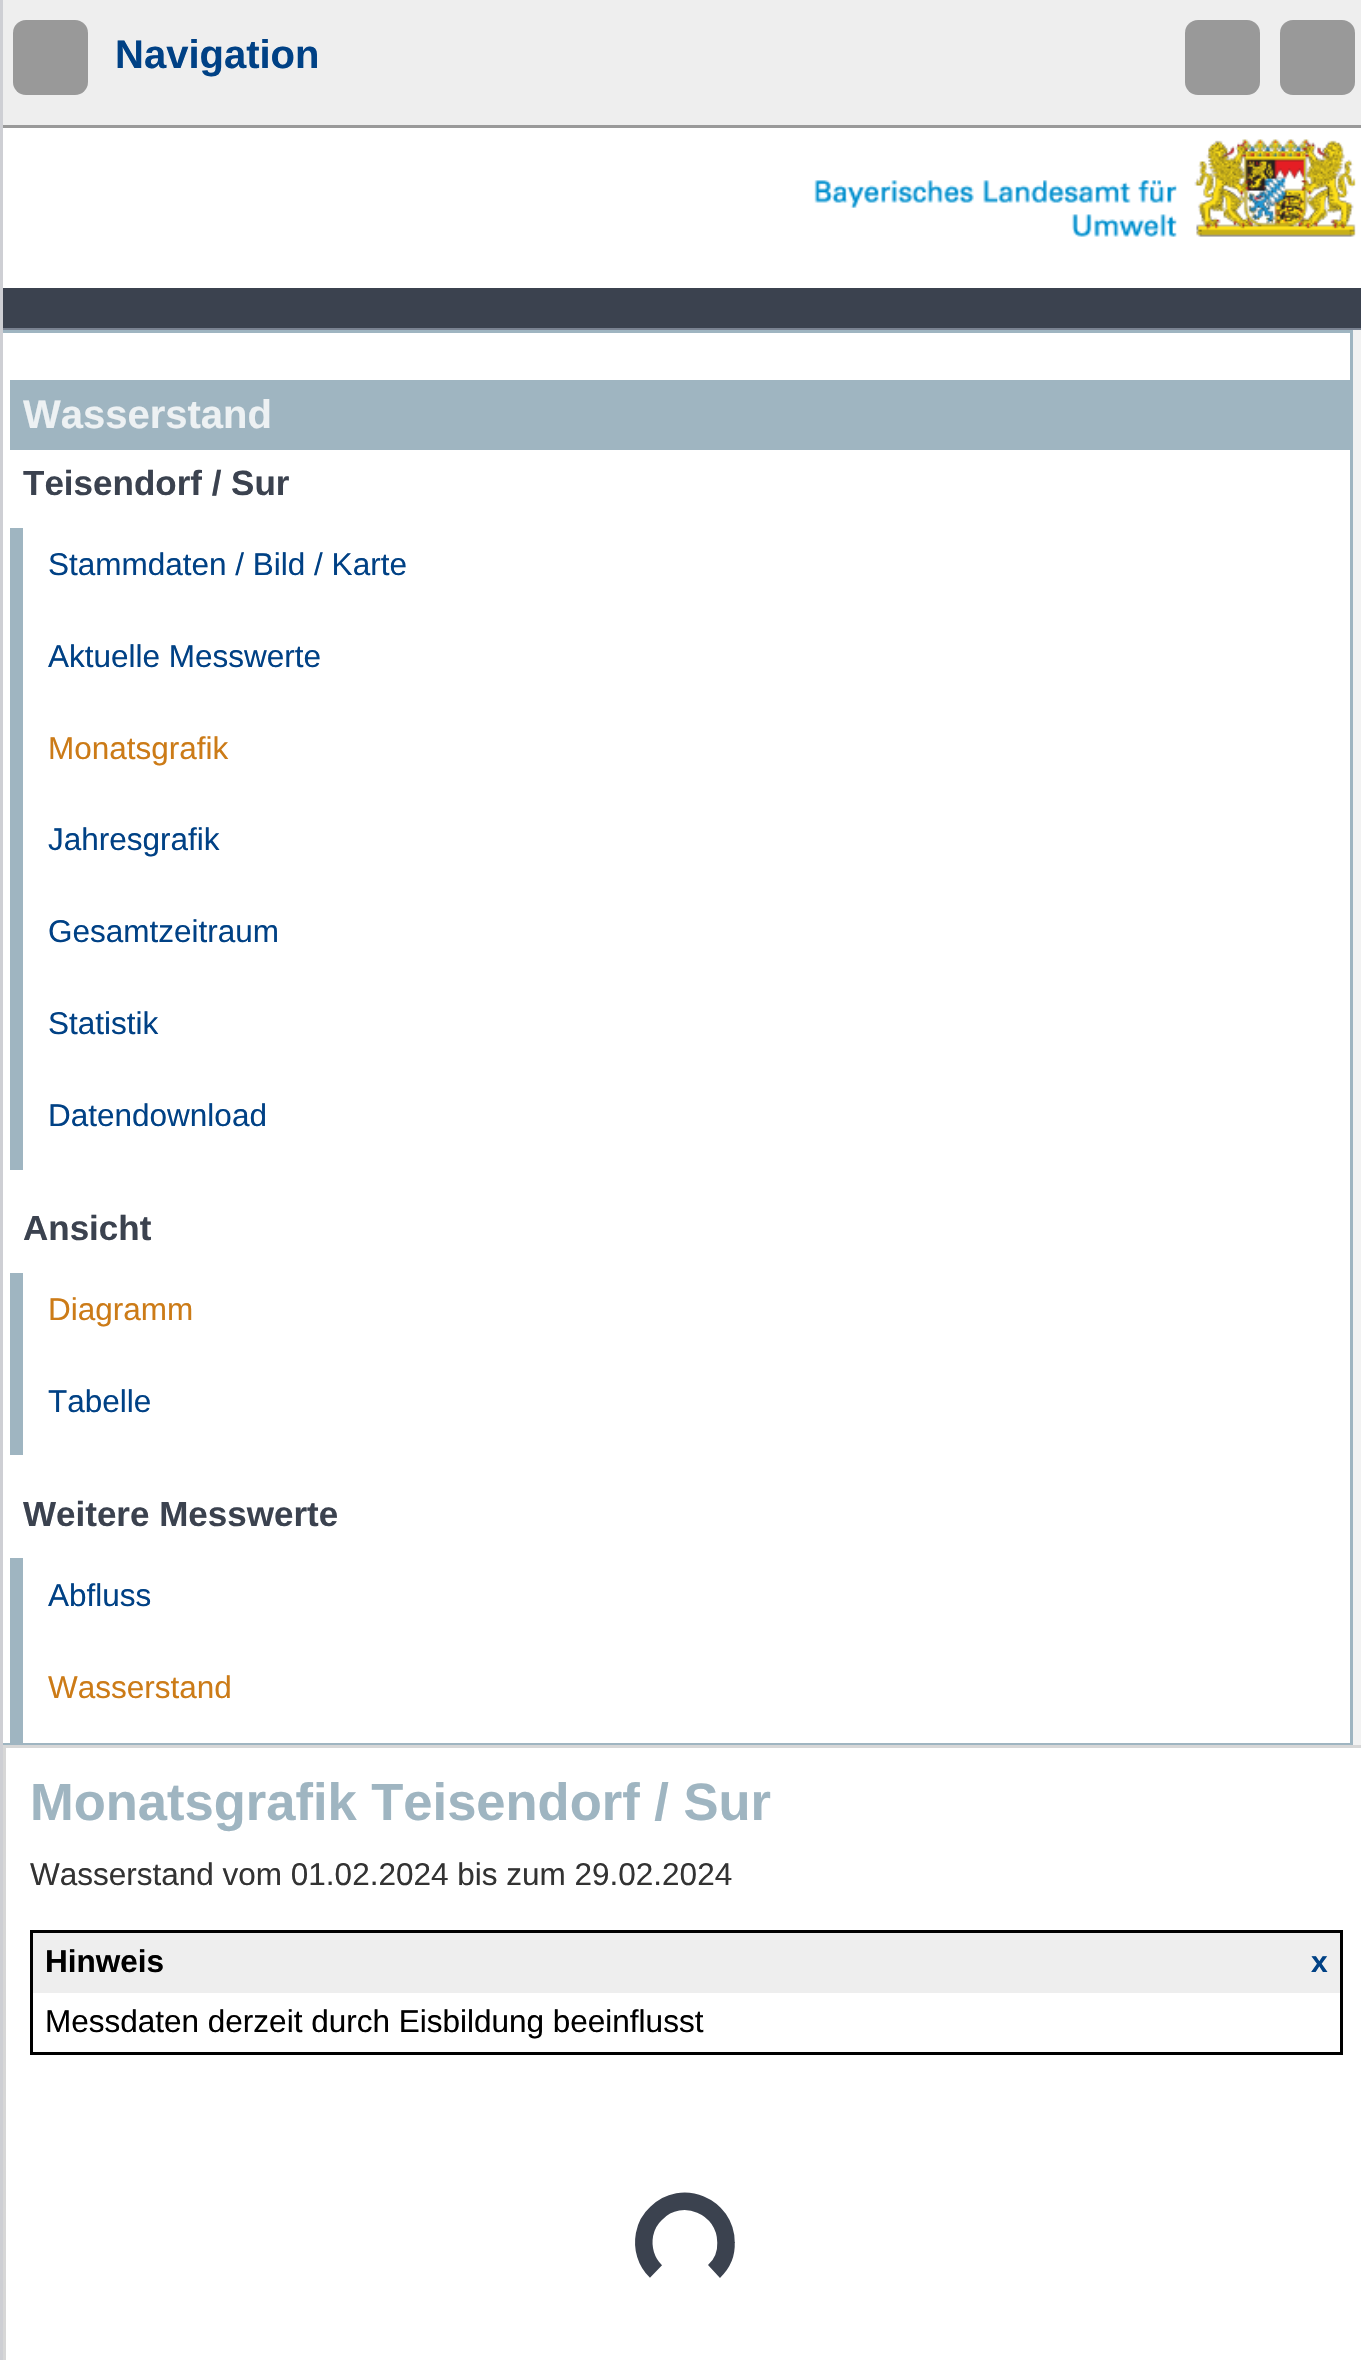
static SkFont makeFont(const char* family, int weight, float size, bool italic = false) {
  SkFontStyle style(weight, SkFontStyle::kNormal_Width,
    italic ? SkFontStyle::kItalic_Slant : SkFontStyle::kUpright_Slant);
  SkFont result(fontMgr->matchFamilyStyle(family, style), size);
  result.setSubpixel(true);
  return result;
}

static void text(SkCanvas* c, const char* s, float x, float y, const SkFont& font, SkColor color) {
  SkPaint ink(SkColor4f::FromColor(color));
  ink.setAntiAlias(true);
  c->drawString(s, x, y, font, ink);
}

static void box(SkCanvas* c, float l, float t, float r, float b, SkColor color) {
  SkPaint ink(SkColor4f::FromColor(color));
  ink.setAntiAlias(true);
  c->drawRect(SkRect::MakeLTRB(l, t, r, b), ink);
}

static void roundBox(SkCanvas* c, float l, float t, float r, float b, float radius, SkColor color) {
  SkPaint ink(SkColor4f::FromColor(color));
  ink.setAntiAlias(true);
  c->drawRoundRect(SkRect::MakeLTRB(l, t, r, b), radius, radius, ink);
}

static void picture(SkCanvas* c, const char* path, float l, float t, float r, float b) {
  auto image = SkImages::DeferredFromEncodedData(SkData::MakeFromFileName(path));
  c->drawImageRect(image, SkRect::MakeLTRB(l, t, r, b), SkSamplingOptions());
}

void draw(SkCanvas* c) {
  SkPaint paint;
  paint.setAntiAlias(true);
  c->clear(0xffffffff);
  box(c, 0, 0, 3, 2360, 0xffcecfd4);
  box(c, 3, 0, 1361, 125, 0xffeeeeee);
  box(c, 3, 125, 1361, 128, 0xff999999);
  roundBox(c, 13, 20, 88, 95, 13, 0xff999999);
  SkFont face1 = makeFont("Liberation Sans", 700, 40);
  text(c, "Navigation", 115, 68, face1, 0xff004185);
  roundBox(c, 1185, 20, 1260, 95, 13, 0xff999999);
  roundBox(c, 1280, 20, 1355, 95, 13, 0xff999999);
  picture(c, "img_01.png", 814, 139, 1356, 237);
  box(c, 3, 288, 1361, 328, 0xff3b424f);
  box(c, 3, 328, 1361, 330, 0xff7a8291);
  box(c, 1353, 330, 1361, 1745, 0xfff2f2f2);
  box(c, 3, 330, 1353, 333, 0xff9fb5c1);
  box(c, 1350, 330, 1353, 1745, 0xff9fb5c1);
  box(c, 3, 1743, 1353, 1745, 0xff9fb5c1);
  box(c, 10, 380, 1350, 450, 0xff9fb5c1);
  text(c, "Wasserstand", 23, 428, face1, 0xffedf1f3);
  SkFont face2 = makeFont("Liberation Sans", 700, 35);
  text(c, "Teisendorf / Sur", 23, 495, face2, 0xff3b424f);
  box(c, 10, 528, 23, 1170, 0xff9fb5c1);
  SkFont face3 = makeFont("Liberation Sans", 400, 31.5f);
  text(c, "Stammdaten / Bild / Karte", 48, 575, face3, 0xff004185);
  text(c, "Aktuelle Messwerte", 48, 667, face3, 0xff004185);
  text(c, "Monatsgrafik", 48, 759, face3, 0xffcc7b17);
  text(c, "Jahresgrafik", 48, 850, face3, 0xff004185);
  text(c, "Gesamtzeitraum", 48, 942, face3, 0xff004185);
  text(c, "Statistik", 48, 1034, face3, 0xff004185);
  text(c, "Datendownload", 48, 1126, face3, 0xff004185);
  text(c, "Ansicht", 23, 1240, face2, 0xff3b424f);
  box(c, 10, 1273, 23, 1455, 0xff9fb5c1);
  text(c, "Diagramm", 48, 1320, face3, 0xffcc7b17);
  text(c, "Tabelle", 48, 1412, face3, 0xff004185);
  text(c, "Weitere Messwerte", 23, 1526, face2, 0xff3b424f);
  box(c, 10, 1558, 23, 1743, 0xff9fb5c1);
  text(c, "Abfluss", 48, 1606, face3, 0xff004185);
  text(c, "Wasserstand", 48, 1698, face3, 0xffcc7b17);
  paint.setStyle(SkPaint::kStroke_Style);
  paint.setStrokeWidth(3);
  paint.setColor(0xffd7d7d7);
  c->drawRect(SkRect::MakeLTRB(4.5f, 1746.5f, 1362.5f, 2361.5f), paint);
  SkFont face4 = makeFont("Liberation Sans", 700, 52.5f);
  text(c, "Monatsgrafik Teisendorf / Sur", 30, 1820, face4, 0xff9fb5c1);
  text(c, "Wasserstand vom 01.02.2024 bis zum 29.02.2024", 30, 1885, face3, 0xff333333);
  paint.setColor(0xff000000);
  c->drawRect(SkRect::MakeLTRB(31.5f, 1931.5f, 1341.5f, 2053.5f), paint);
  box(c, 33, 1933, 1340, 1993, 0xffeeeeee);
  SkFont face5 = makeFont("Liberation Sans", 700, 31.5f);
  text(c, "Hinweis", 45, 1972, face5, 0xff000000);
  SkFont face6 = makeFont("Liberation Sans", 700, 30);
  text(c, "x", 1311, 1972, face6, 0xff004185);
  text(c, "Messdaten derzeit durch Eisbildung beeinflusst", 45, 2032, face3, 0xff000000);
  paint.setStrokeWidth(17.5f);
  paint.setColor(0xff3b424f);
  c->drawPath(SkPathBuilder().moveTo(656, 2271.5f).cubicTo(646, 2262, 642, 2248, 644.5f, 2234.5f).cubicTo(646, 2226.5f, 650, 2219, 656, 2213.5f).cubicTo(681.5f, 2187.5f, 726, 2206, 726, 2242.5f).cubicTo(726.5f, 2253.5f, 722, 2264, 714, 2271.5f).detach(), paint);
}
